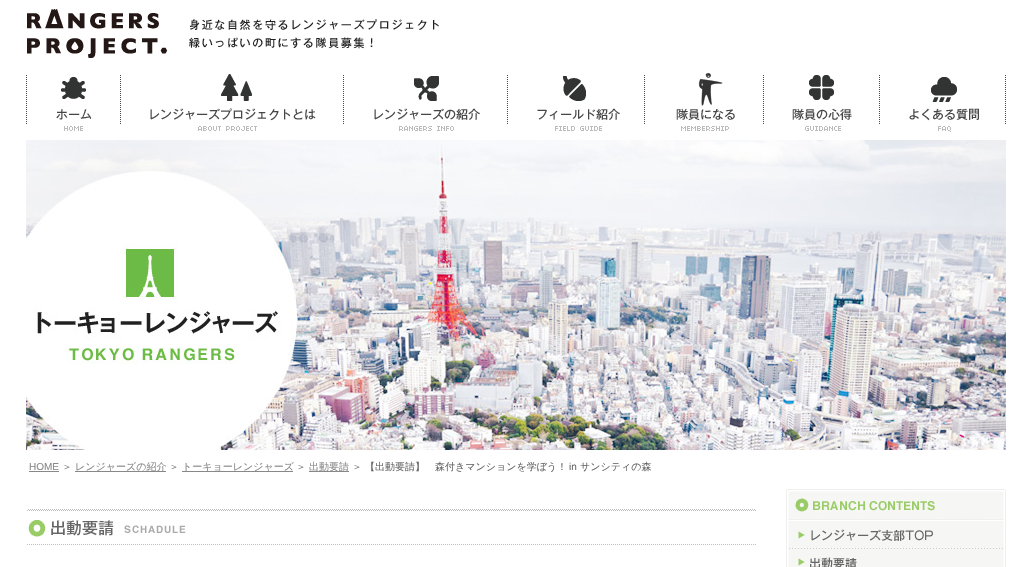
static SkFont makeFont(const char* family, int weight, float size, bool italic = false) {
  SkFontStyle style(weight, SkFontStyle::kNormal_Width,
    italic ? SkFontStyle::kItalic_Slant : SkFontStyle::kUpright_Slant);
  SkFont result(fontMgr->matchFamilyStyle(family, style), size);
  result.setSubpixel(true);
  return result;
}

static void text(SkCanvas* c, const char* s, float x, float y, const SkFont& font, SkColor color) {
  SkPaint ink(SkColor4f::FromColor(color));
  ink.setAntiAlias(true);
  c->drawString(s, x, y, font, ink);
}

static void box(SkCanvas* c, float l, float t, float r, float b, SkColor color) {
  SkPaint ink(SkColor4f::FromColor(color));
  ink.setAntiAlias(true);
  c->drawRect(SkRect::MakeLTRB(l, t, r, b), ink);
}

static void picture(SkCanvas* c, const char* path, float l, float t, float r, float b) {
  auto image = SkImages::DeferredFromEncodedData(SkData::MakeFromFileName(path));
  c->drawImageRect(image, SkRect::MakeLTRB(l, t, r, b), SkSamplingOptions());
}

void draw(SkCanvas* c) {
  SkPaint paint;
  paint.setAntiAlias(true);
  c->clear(0xffffffff);
  picture(c, "img_01.png", 27, 9, 439, 58);
  picture(c, "img_02.png", 26, 75, 121, 131);
  picture(c, "img_03.png", 150, 74, 344, 131);
  picture(c, "img_04.png", 374, 75, 508, 131);
  picture(c, "img_05.png", 537, 75, 645, 131);
  picture(c, "img_06.png", 676, 72, 764, 131);
  picture(c, "img_07.png", 792, 75, 880, 131);
  picture(c, "img_08.png", 909, 75, 1006, 132);
  picture(c, "img_09.png", 26, 140, 1006, 450);
  SkFont face1 = makeFont("Liberation Sans", 400, 10);
  text(c, "HOME", 29, 470, face1, 0xff888888);
  box(c, 29, 471, 59, 472, 0xff888888);
  SkFont face2 = makeFont("WenQuanYi Zen Hei", 500, 10);
  text(c, "＞", 62, 470, face2, 0xff666666);
  box(c, 75, 471, 166, 472, 0xff888888);
  text(c, "レンジャーズの紹介", 75, 470, face2, 0xff888888);
  text(c, "＞", 169, 470, face2, 0xff666666);
  box(c, 182, 471, 293, 472, 0xff888888);
  text(c, "トーキョーレンジャーズ", 182, 470, face2, 0xff888888);
  text(c, "＞", 296, 470, face2, 0xff666666);
  box(c, 309, 471, 349, 472, 0xff888888);
  text(c, "出動要請", 309, 470, face2, 0xff888888);
  text(c, "＞ 【出動要請】　森付きマンションを学ぼう！", 352, 470, face2, 0xff666666);
  text(c, "in", 569, 470, face1, 0xff666666);
  text(c, "サンシティの森", 580, 470, face2, 0xff666666);
  picture(c, "img_10.png", 27, 509, 756, 545);
  picture(c, "img_11.png", 786, 489, 1006, 521);
  picture(c, "img_12.png", 786, 521, 1006, 549);
  picture(c, "img_13.png", 786, 549, 1006, 567);
}
